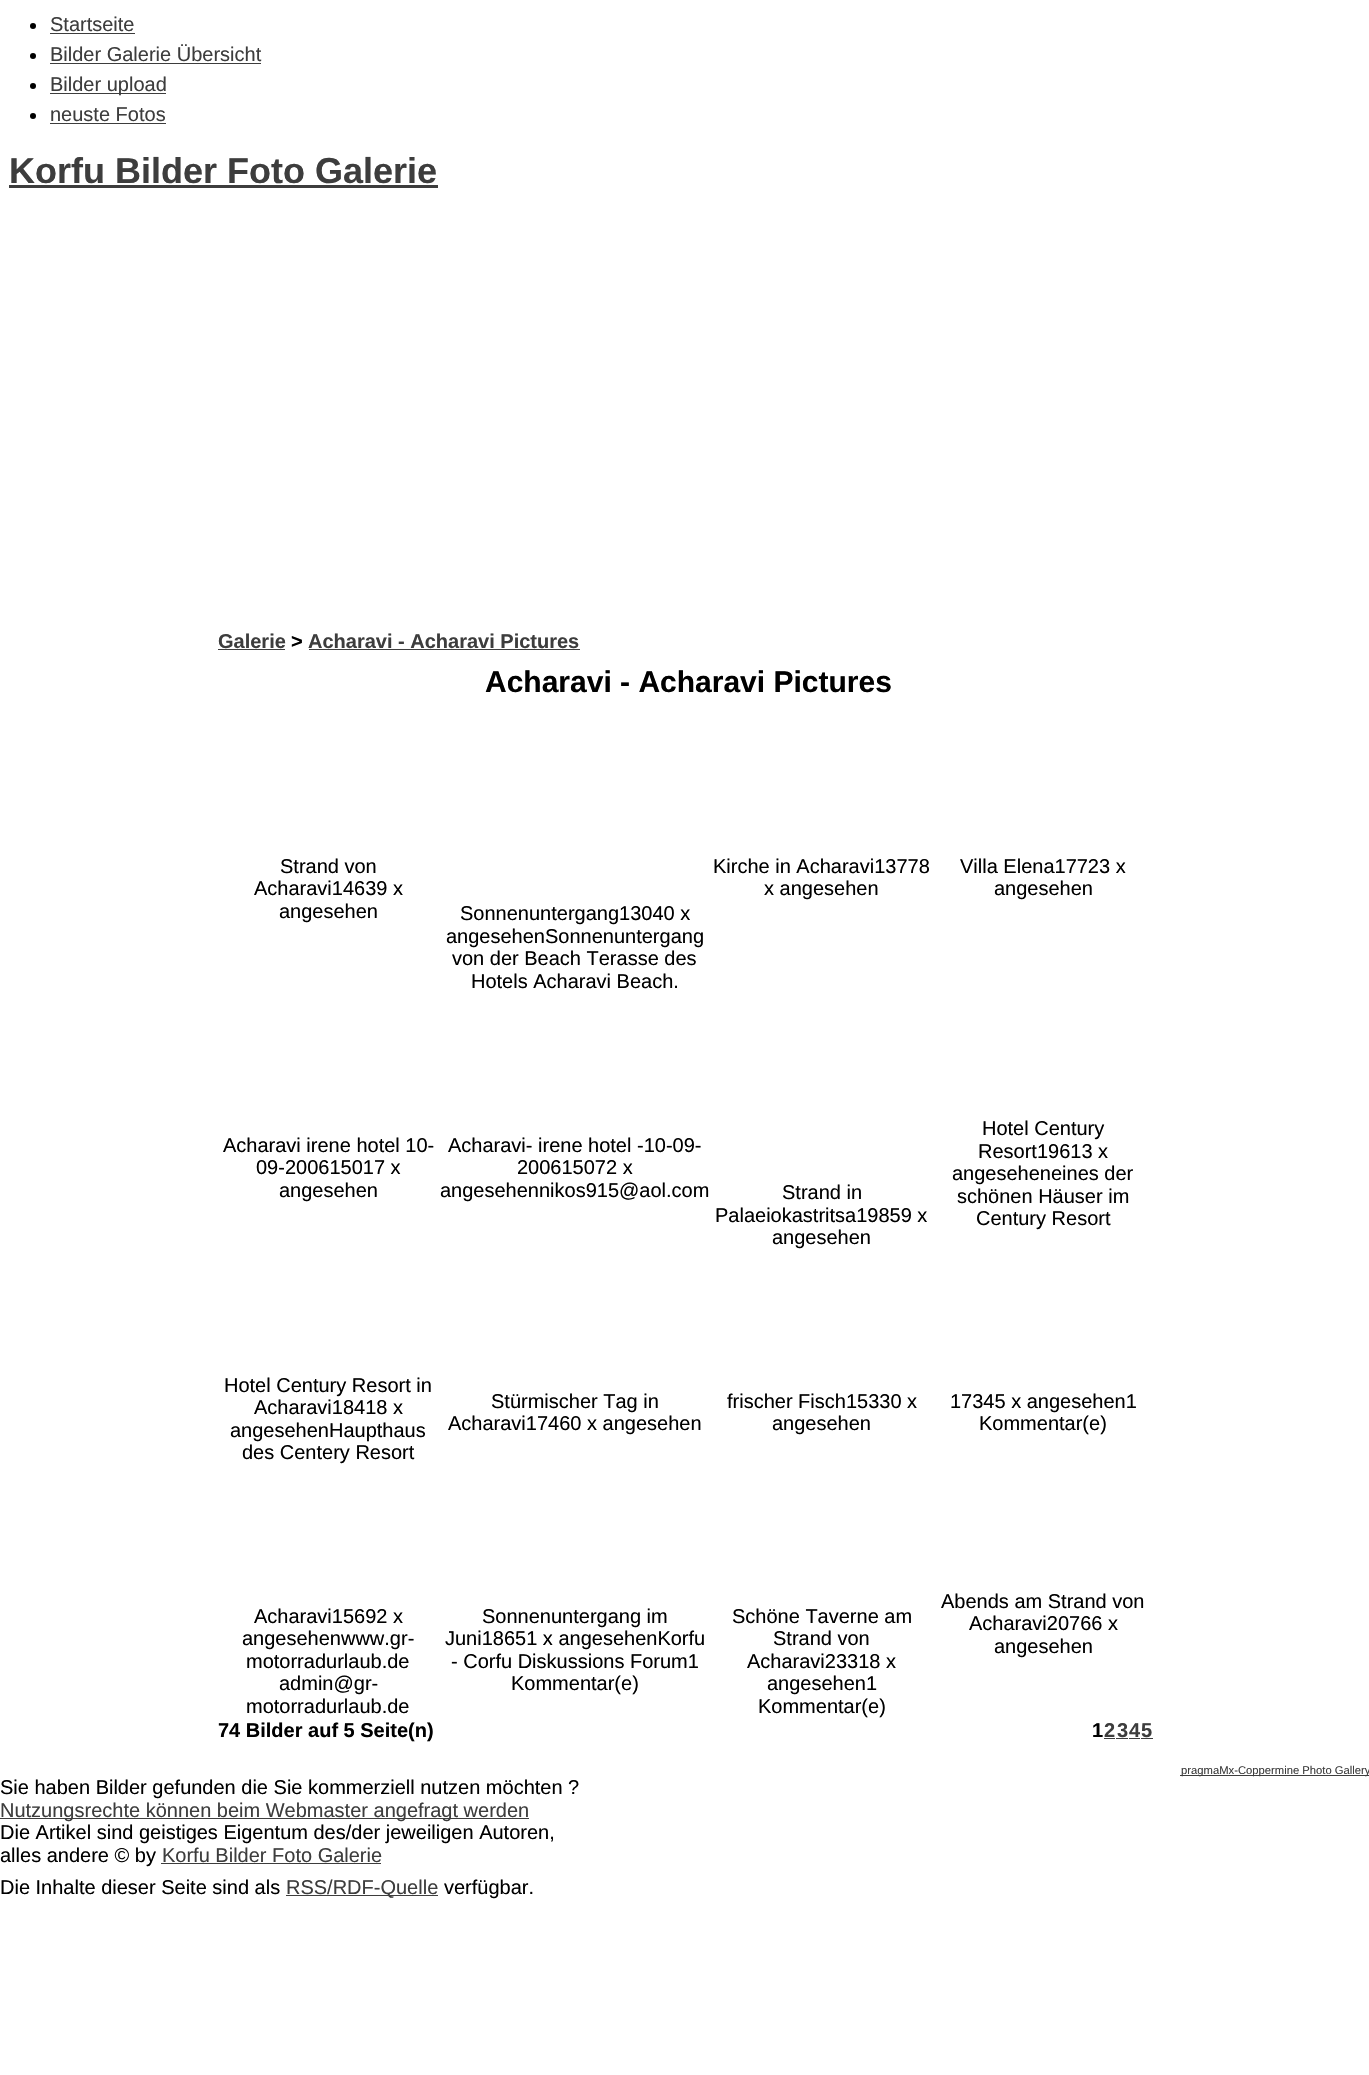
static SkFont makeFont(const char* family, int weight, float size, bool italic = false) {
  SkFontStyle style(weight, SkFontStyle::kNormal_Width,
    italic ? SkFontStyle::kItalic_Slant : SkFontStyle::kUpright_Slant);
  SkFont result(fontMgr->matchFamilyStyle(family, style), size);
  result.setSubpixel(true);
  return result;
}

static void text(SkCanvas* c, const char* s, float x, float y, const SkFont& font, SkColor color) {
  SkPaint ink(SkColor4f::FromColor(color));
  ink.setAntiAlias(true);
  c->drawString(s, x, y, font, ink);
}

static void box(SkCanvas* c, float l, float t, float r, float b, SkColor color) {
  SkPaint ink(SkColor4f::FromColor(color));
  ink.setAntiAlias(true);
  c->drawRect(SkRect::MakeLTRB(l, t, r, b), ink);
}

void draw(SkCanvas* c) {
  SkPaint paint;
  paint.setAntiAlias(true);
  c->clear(0xffffffff);
  paint.setColor(0xff000000);
  c->drawCircle(33, 26, 3, paint);
  SkFont face1 = makeFont("Liberation Sans", 400, 20);
  text(c, "Startseite", 50, 31, face1, 0xff3d3d3d);
  box(c, 50, 33, 135, 34, 0xff3d3d3d);
  c->drawCircle(33, 56, 3, paint);
  text(c, "Bilder Galerie Übersicht", 50, 61, face1, 0xff3d3d3d);
  box(c, 50, 63, 261, 64, 0xff3d3d3d);
  c->drawCircle(33, 86, 3, paint);
  box(c, 50, 93, 166, 94, 0xff3d3d3d);
  text(c, "Bilder upload", 50, 91, face1, 0xff3d3d3d);
  c->drawCircle(33, 116, 3, paint);
  text(c, "neuste Fotos", 50, 121, face1, 0xff3d3d3d);
  box(c, 50, 123, 166, 124, 0xff3d3d3d);
  SkFont face2 = makeFont("Liberation Sans", 700, 36);
  text(c, "Korfu Bilder Foto Galerie", 9, 183, face2, 0xff3d3d3d);
  box(c, 9, 185, 438, 188, 0xff3d3d3d);
  SkFont face3 = makeFont("Liberation Sans", 700, 20);
  text(c, "Galerie", 218, 648, face3, 0xff3d3d3d);
  box(c, 218, 649, 285, 650, 0xff3d3d3d);
  text(c, ">", 291, 648, face3, 0xff000000);
  text(c, "Acharavi - Acharavi Pictures", 308, 648, face3, 0xff3d3d3d);
  box(c, 309, 649, 580, 650, 0xff3d3d3d);
  SkFont face4 = makeFont("Liberation Sans", 700, 30);
  text(c, "Acharavi - Acharavi Pictures", 485, 692, face4, 0xff000000);
  text(c, "Strand von", 280, 873, face1, 0xff000000);
  text(c, "Acharavi14639 x", 254, 895, face1, 0xff000000);
  text(c, "angesehen", 279, 918, face1, 0xff000000);
  text(c, "Kirche in Acharavi13778", 713, 873, face1, 0xff000000);
  text(c, "x angesehen", 764, 895, face1, 0xff000000);
  text(c, "Villa Elena17723 x", 960, 873, face1, 0xff000000);
  text(c, "angesehen", 994, 895, face1, 0xff000000);
  text(c, "Sonnenuntergang13040 x", 460, 920, face1, 0xff000000);
  text(c, "angesehenSonnenuntergang", 446, 943, face1, 0xff000000);
  text(c, "von der Beach Terasse des", 452, 965, face1, 0xff000000);
  text(c, "Hotels Acharavi Beach.", 471, 988, face1, 0xff000000);
  text(c, "Acharavi irene hotel 10-", 223, 1152, face1, 0xff000000);
  text(c, "09-200615017 x", 256, 1174, face1, 0xff000000);
  text(c, "angesehen", 279, 1197, face1, 0xff000000);
  text(c, "Acharavi- irene hotel -10-09-", 448, 1152, face1, 0xff000000);
  text(c, "200615072 x", 517, 1174, face1, 0xff000000);
  text(c, "angesehennikos915@aol.com", 440, 1197, face1, 0xff000000);
  text(c, "Hotel Century", 982, 1135, face1, 0xff000000);
  text(c, "Resort19613 x", 978, 1158, face1, 0xff000000);
  text(c, "angeseheneines der", 952, 1180, face1, 0xff000000);
  text(c, "schönen Häuser im", 957, 1203, face1, 0xff000000);
  text(c, "Century Resort", 976, 1225, face1, 0xff000000);
  text(c, "Strand in", 782, 1199, face1, 0xff000000);
  text(c, "Palaeiokastritsa19859 x", 715, 1222, face1, 0xff000000);
  text(c, "angesehen", 772, 1244, face1, 0xff000000);
  text(c, "Hotel Century Resort in", 224, 1392, face1, 0xff000000);
  text(c, "Acharavi18418 x", 254, 1414, face1, 0xff000000);
  text(c, "angesehenHaupthaus", 230, 1437, face1, 0xff000000);
  text(c, "des Centery Resort", 242, 1459, face1, 0xff000000);
  text(c, "Stürmischer Tag in", 491, 1408, face1, 0xff000000);
  text(c, "Acharavi17460 x angesehen", 448, 1430, face1, 0xff000000);
  text(c, "frischer Fisch15330 x", 727, 1408, face1, 0xff000000);
  text(c, "angesehen", 772, 1430, face1, 0xff000000);
  text(c, "17345 x angesehen1", 950, 1408, face1, 0xff000000);
  text(c, "Kommentar(e)", 979, 1430, face1, 0xff000000);
  text(c, "Acharavi15692 x", 254, 1623, face1, 0xff000000);
  text(c, "angesehenwww.gr-", 242, 1645, face1, 0xff000000);
  text(c, "motorradurlaub.de", 246, 1668, face1, 0xff000000);
  text(c, "admin@gr-", 279, 1690, face1, 0xff000000);
  text(c, "motorradurlaub.de", 246, 1713, face1, 0xff000000);
  text(c, "Sonnenuntergang im", 482, 1623, face1, 0xff000000);
  text(c, "Juni18651 x angesehenKorfu", 445, 1645, face1, 0xff000000);
  text(c, "- Corfu Diskussions Forum1", 451, 1668, face1, 0xff000000);
  text(c, "Kommentar(e)", 511, 1690, face1, 0xff000000);
  text(c, "Schöne Taverne am", 732, 1623, face1, 0xff000000);
  text(c, "Strand von", 773, 1645, face1, 0xff000000);
  text(c, "Acharavi23318 x", 747, 1668, face1, 0xff000000);
  text(c, "angesehen1", 767, 1690, face1, 0xff000000);
  text(c, "Kommentar(e)", 758, 1713, face1, 0xff000000);
  text(c, "Abends am Strand von", 941, 1608, face1, 0xff000000);
  text(c, "Acharavi20766 x", 969, 1630, face1, 0xff000000);
  text(c, "angesehen", 994, 1653, face1, 0xff000000);
  text(c, "74 Bilder auf 5 Seite(n)", 218, 1737, face3, 0xff000000);
  text(c, "1", 1092, 1737, face3, 0xff000000);
  text(c, "2", 1104, 1737, face3, 0xff3d3d3d);
  box(c, 1104, 1738, 1115, 1739, 0xff3d3d3d);
  text(c, "3", 1117, 1737, face3, 0xff3d3d3d);
  box(c, 1116, 1738, 1128, 1739, 0xff3d3d3d);
  text(c, "4", 1129, 1737, face3, 0xff3d3d3d);
  box(c, 1129, 1738, 1140, 1739, 0xff3d3d3d);
  text(c, "5", 1141, 1737, face3, 0xff3d3d3d);
  box(c, 1141, 1738, 1153, 1739, 0xff3d3d3d);
  box(c, 1180, 1775, 1369, 1776, 0xff3d3d3d);
  SkFont face5 = makeFont("Liberation Sans", 400, 11.25f);
  text(c, "pragmaMx-Coppermine Photo Gallery", 1181, 1774, face5, 0xff3d3d3d);
  text(c, "Sie haben Bilder gefunden die Sie kommerziell nutzen möchten ?", 0, 1794, face1, 0xff000000);
  box(c, 0, 1818, 529, 1819, 0xff3d3d3d);
  text(c, "Nutzungsrechte können beim Webmaster angefragt werden", 0, 1817, face1, 0xff3d3d3d);
  text(c, "Die Artikel sind geistiges Eigentum des/der jeweiligen Autoren,", 0, 1839, face1, 0xff000000);
  text(c, "alles andere © by", 0, 1862, face1, 0xff000000);
  text(c, "Korfu Bilder Foto Galerie", 162, 1862, face1, 0xff3d3d3d);
  box(c, 161, 1863, 381, 1864, 0xff3d3d3d);
  text(c, "Die Inhalte dieser Seite sind als", 0, 1894, face1, 0xff000000);
  box(c, 286, 1895, 438, 1896, 0xff3d3d3d);
  text(c, "RSS/RDF-Quelle", 286, 1894, face1, 0xff3d3d3d);
  text(c, "verfügbar.", 444, 1894, face1, 0xff000000);
}
